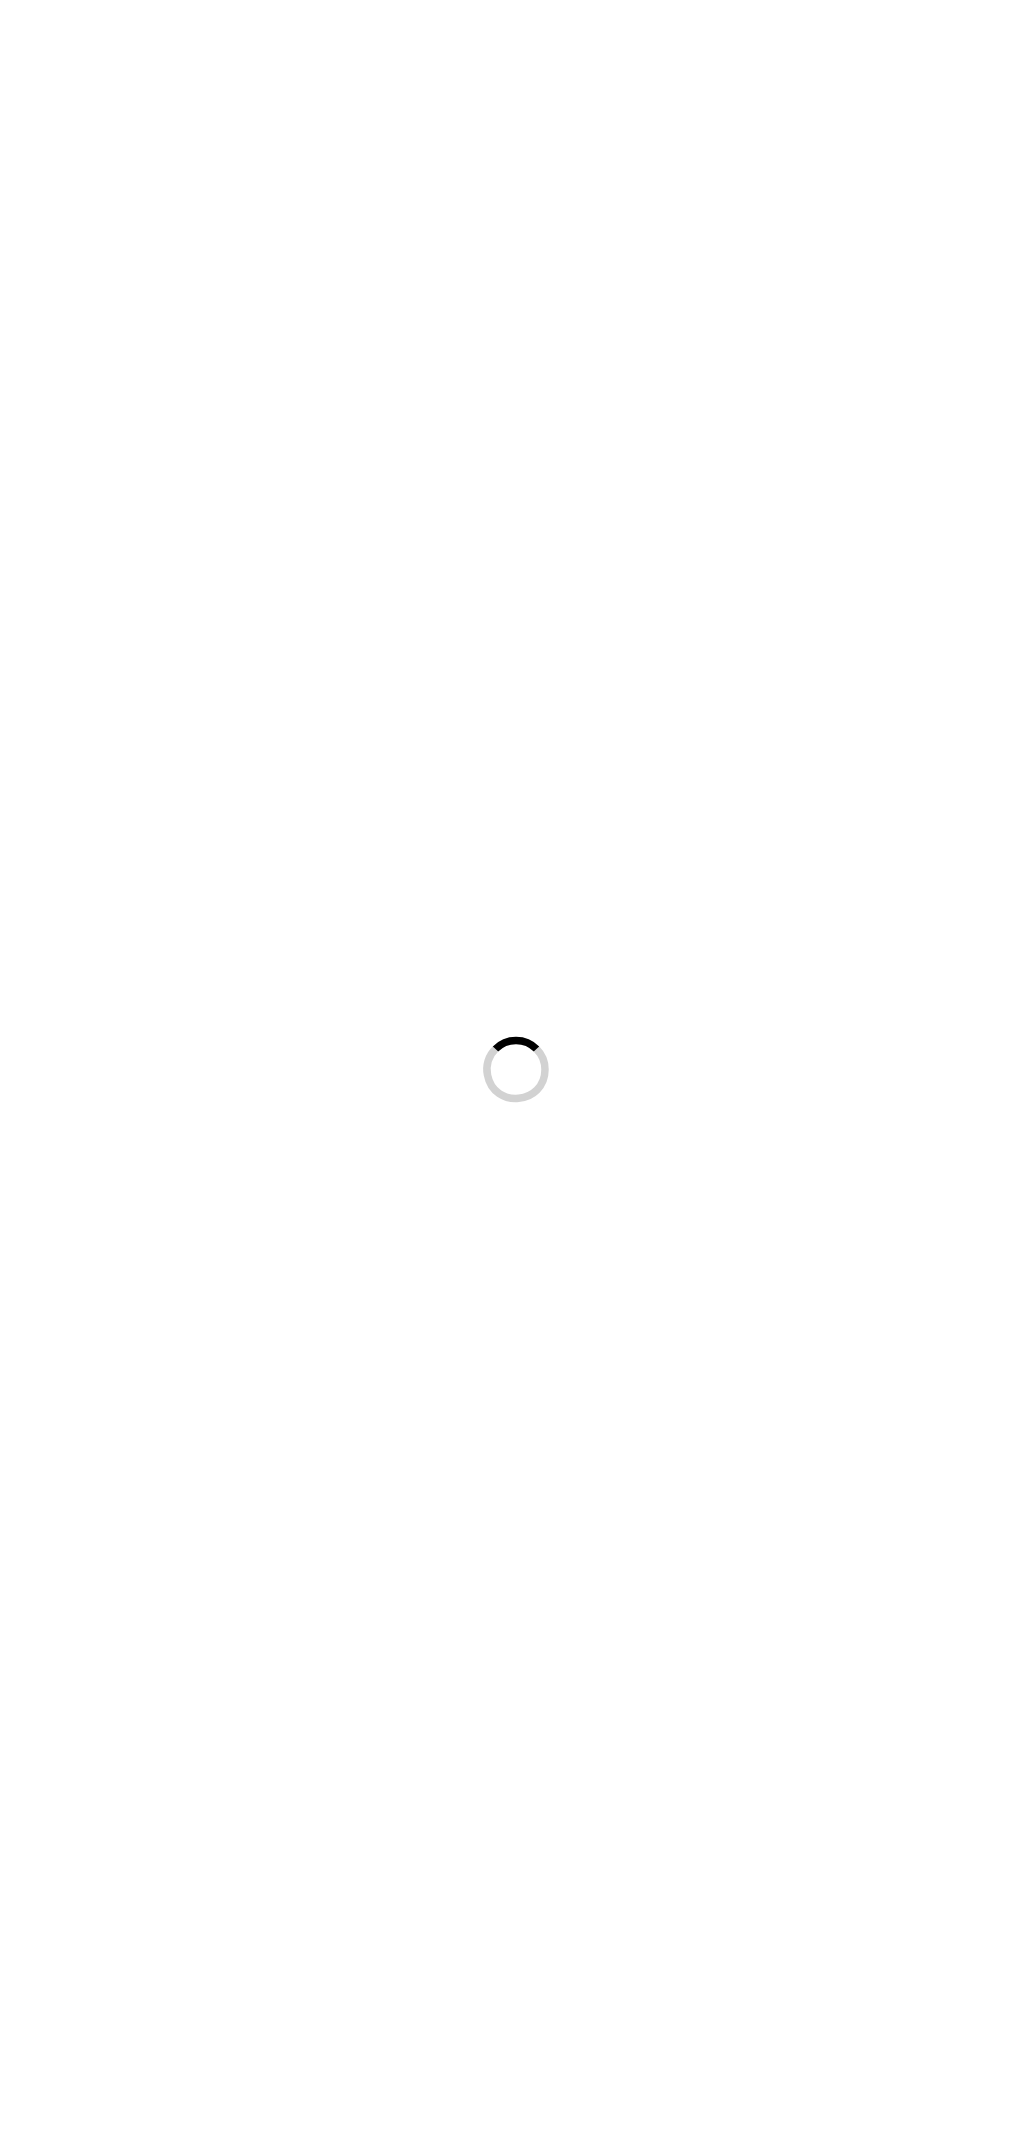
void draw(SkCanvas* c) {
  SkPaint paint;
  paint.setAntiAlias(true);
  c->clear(0xffffffff);
  paint.setStyle(SkPaint::kStroke_Style);
  paint.setStrokeWidth(7.5f);
  paint.setColor(0xff000000);
  c->drawPath(SkPathBuilder().moveTo(495.5f, 1049).cubicTo(506.5f, 1037.5f, 525.5f, 1037.5f, 536.5f, 1049).detach(), paint);
  paint.setColor(0x331d1d1d);
  c->drawPath(SkPathBuilder().moveTo(536.5f, 1049).cubicTo(542, 1054.5f, 545, 1062, 545, 1069.5f).cubicTo(545, 1104.5f, 494, 1109.5f, 487.5f, 1075).cubicTo(485.5f, 1065.5f, 488.5f, 1055.5f, 495.5f, 1049).detach(), paint);
}
